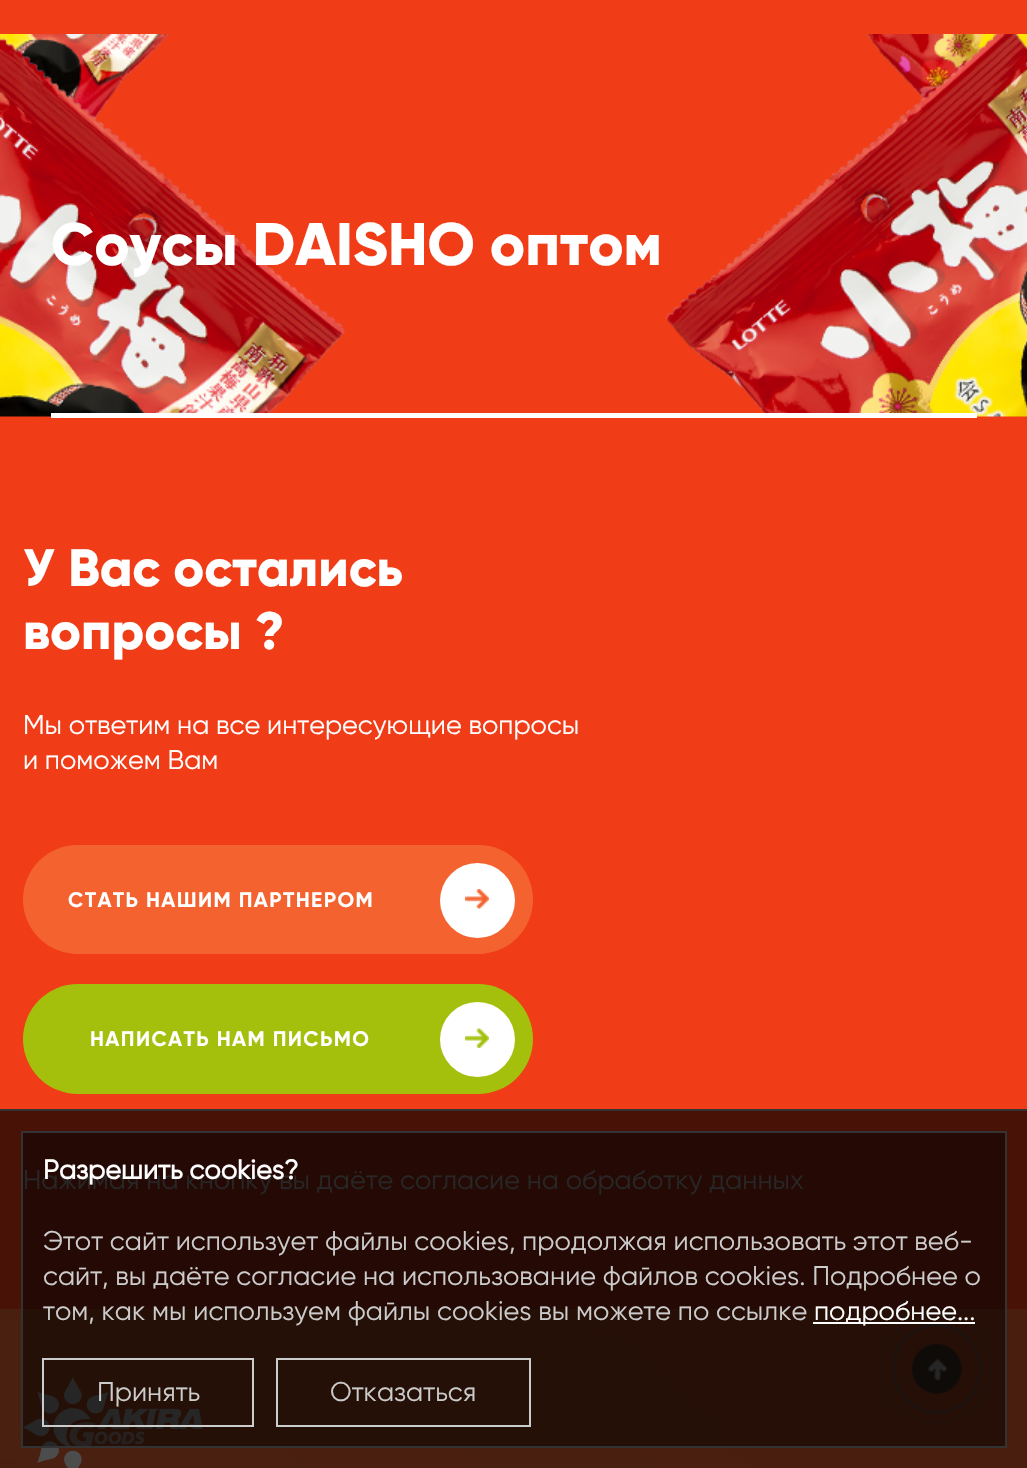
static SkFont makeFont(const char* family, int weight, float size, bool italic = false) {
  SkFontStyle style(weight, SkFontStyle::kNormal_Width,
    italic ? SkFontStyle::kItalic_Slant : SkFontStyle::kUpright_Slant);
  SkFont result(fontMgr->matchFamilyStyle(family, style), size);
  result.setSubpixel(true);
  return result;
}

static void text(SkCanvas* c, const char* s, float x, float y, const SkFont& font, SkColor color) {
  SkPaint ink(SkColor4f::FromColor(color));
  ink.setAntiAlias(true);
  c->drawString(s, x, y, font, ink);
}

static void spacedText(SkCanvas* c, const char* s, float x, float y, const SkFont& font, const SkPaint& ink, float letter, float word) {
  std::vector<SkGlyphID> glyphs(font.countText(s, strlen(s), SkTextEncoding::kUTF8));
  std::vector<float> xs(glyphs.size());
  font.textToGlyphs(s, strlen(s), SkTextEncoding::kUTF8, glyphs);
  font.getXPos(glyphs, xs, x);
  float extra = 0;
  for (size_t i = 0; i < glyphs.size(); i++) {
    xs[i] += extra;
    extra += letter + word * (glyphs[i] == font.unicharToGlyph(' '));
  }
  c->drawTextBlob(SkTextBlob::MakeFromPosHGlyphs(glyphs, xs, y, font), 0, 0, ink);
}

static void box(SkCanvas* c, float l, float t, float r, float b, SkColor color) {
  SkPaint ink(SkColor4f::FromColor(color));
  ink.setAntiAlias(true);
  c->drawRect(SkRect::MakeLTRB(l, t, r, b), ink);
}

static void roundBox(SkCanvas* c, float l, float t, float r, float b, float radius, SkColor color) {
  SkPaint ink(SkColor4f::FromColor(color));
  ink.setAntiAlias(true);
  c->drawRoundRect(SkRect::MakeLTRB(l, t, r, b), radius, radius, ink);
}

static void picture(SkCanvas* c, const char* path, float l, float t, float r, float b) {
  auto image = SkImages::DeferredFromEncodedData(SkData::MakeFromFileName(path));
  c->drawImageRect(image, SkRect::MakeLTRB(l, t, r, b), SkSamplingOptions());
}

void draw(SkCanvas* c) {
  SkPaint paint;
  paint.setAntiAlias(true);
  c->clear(0xfff03c17);
  box(c, 0, 1111, 1027, 1309, 0xff481207);
  picture(c, "img_01.png", 0, 34, 1027, 417);
  box(c, 51, 413, 977, 418, 0xffffffff);
  SkFont face1 = makeFont("Gilroy", 800, 60);
  text(c, "Соусы DAISHO оптом", 51, 265, face1, 0xffffffff);
  SkFont face2 = makeFont("Gilroy", 800, 52.5f);
  text(c, "У Вас остались", 23, 586, face2, 0xffffffff);
  text(c, "вопросы ?", 23, 649, face2, 0xffffffff);
  SkFont face3 = makeFont("Gilroy", 400, 27);
  text(c, "Мы ответим на все интересующие вопросы", 23, 734, face3, 0xffffffff);
  text(c, "и поможем Вам", 23, 769, face3, 0xffffffff);
  roundBox(c, 23, 845, 533, 954, 54.5f, 0xfff4622f);
  SkFont face4 = makeFont("Gilroy", 700, 21);
  paint.setColor(0xffffffff);
  spacedText(c, "СТАТЬ НАШИМ ПАРТНЕРОМ", 68, 907, face4, paint, 1.4f, 0);
  c->drawCircle(477.5f, 900.5f, 37.5f, paint);
  picture(c, "img_02.png", 465, 889, 489, 909);
  roundBox(c, 23, 984, 533, 1094, 55, 0xffa4c00c);
  spacedText(c, "НАПИСАТЬ НАМ ПИСЬМО", 90, 1046, face4, paint, 1.4f, 0);
  c->drawCircle(477.5f, 1039.5f, 37.5f, paint);
  picture(c, "img_03.png", 465, 1028, 489, 1048);
  text(c, "Нажимая на кнопку вы даёте согласие на обработку данных", 23, 1189, face3, 0xff4d4d4d);
  picture(c, "img_04.png", 0, 1309, 1027, 1468);
  picture(c, "img_05.png", 23, 1377, 203, 1468);
  box(c, 0, 1109, 1027, 1111, 0xff333333);
  picture(c, "img_06.png", 882, 1314, 992, 1424);
  paint.setColor(0x80000000);
  c->drawRect(SkRect::MakeLTRB(22, 1132, 1006, 1447), paint);
  paint.setStyle(SkPaint::kStroke_Style);
  paint.setStrokeWidth(2);
  paint.setColor(0xff333333);
  c->drawRect(SkRect::MakeLTRB(22, 1132, 1006, 1447), paint);
  SkFont face5 = makeFont("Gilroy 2", 700, 27);
  text(c, "Разрешить cookies?", 43, 1179, face5, 0xffffffff);
  text(c, "Этот сайт использует файлы cookies, продолжая использовать этот веб-", 43, 1250, face3, 0xffcccccc);
  text(c, "сайт, вы даёте согласие на использование файлов cookies. Подробнее о", 43, 1285, face3, 0xffcccccc);
  text(c, "том, как мы используем файлы cookies вы можете по ссылке", 43, 1320, face3, 0xffcccccc);
  box(c, 813, 1322, 975, 1324, 0xffffffff);
  text(c, "подробнее...", 814, 1320, face3, 0xffffffff);
  paint.setColor(0xffcccccc);
  c->drawRect(SkRect::MakeLTRB(43, 1359, 253, 1426), paint);
  text(c, "Принять", 97, 1401, face3, 0xffcccccc);
  c->drawRect(SkRect::MakeLTRB(277, 1359, 530, 1426), paint);
  text(c, "Отказаться", 330, 1401, face3, 0xffcccccc);
}
